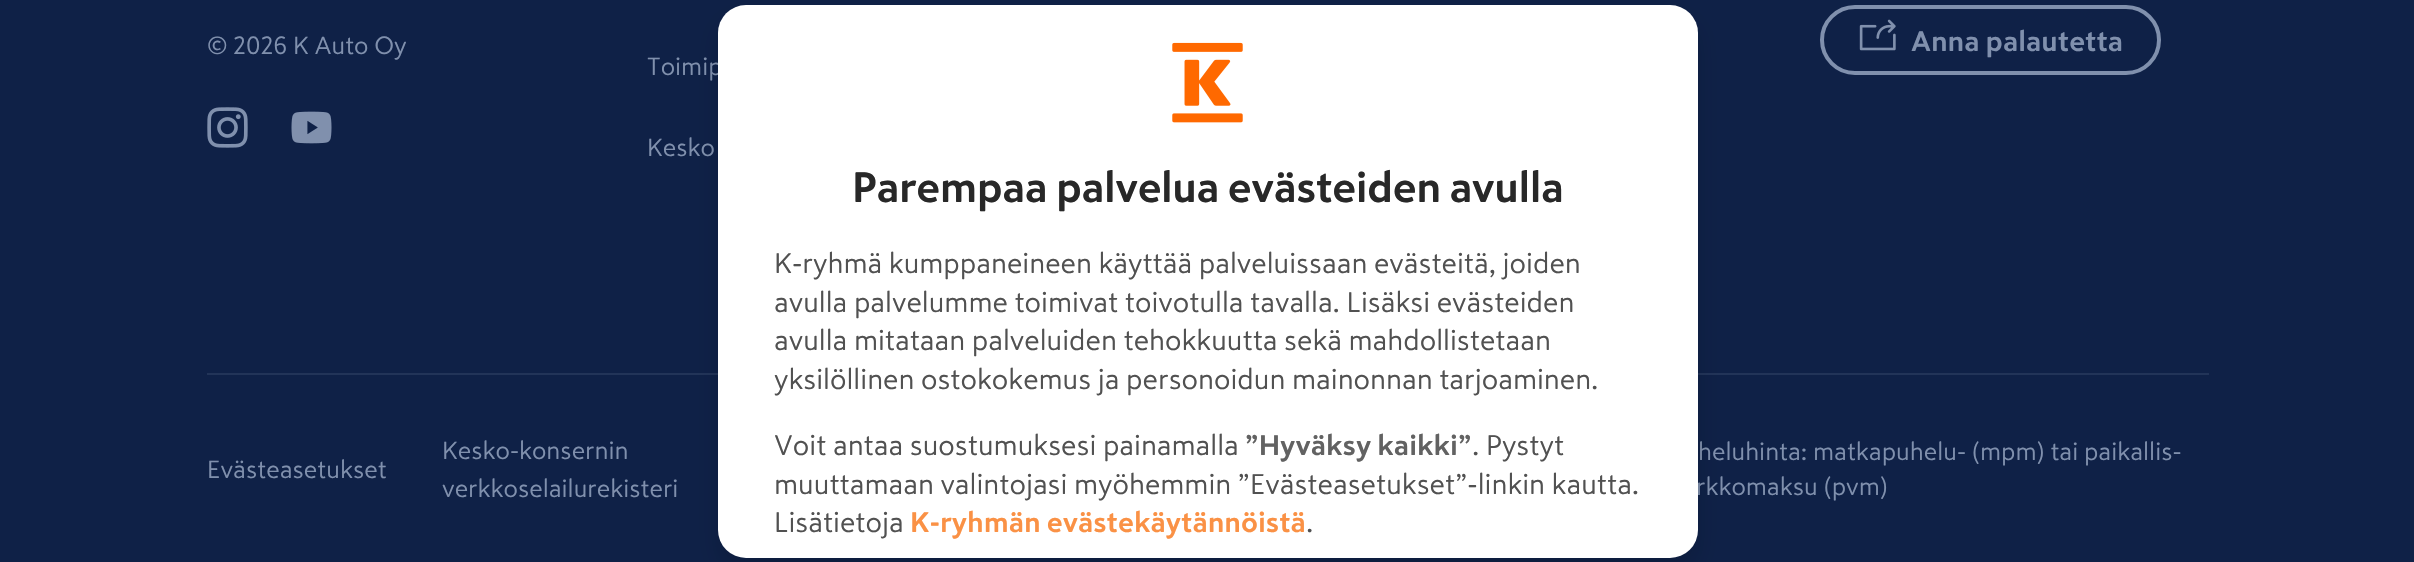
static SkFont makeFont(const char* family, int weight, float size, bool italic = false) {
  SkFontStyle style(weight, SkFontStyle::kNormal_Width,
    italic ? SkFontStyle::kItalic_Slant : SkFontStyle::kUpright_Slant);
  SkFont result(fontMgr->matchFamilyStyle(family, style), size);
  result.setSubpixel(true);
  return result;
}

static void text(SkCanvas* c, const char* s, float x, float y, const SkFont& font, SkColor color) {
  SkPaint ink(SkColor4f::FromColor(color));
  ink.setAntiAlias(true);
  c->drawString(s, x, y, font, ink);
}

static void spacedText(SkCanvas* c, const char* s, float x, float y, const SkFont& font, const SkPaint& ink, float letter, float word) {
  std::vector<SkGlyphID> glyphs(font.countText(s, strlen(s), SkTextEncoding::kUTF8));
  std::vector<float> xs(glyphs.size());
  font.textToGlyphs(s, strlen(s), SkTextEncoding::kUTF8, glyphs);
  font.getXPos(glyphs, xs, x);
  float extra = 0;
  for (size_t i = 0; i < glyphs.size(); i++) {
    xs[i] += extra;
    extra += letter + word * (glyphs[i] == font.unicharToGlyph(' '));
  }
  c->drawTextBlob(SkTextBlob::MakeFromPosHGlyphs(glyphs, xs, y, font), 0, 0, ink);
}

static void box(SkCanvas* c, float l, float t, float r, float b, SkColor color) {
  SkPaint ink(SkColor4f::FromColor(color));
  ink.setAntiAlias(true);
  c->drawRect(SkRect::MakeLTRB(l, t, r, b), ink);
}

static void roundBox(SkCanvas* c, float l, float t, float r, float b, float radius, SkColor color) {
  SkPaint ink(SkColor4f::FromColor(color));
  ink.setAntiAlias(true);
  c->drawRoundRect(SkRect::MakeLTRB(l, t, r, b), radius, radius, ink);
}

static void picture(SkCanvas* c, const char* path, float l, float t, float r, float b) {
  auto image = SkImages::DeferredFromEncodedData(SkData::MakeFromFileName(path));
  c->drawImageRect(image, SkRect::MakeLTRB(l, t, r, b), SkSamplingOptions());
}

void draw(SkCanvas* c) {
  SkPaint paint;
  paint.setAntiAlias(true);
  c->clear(0xff0f2147);
  SkFont face1 = makeFont("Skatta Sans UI", 400, 24.5f);
  text(c, "© 2026 K Auto Oy", 207, 54, face1, 0xff8090ad);
  picture(c, "img_01.png", 207, 107, 248, 148);
  picture(c, "img_02.png", 291, 111, 332, 144);
  picture(c, "img_03.png", 1859, 19, 1896, 51);
  paint.setStyle(SkPaint::kStroke_Style);
  paint.setStrokeWidth(4);
  paint.setColor(0xff8090ad);
  c->drawRoundRect(SkRect::MakeLTRB(1822, 7, 2159, 73), 33, 33, paint);
  SkFont face2 = makeFont("Skatta Sans UI", 700, 28);
  text(c, "Anna palautetta", 1911, 51, face2, 0xff8090ad);
  text(c, "Toimip", 647, 75, face1, 0xff8090ad);
  text(c, "Kesko", 647, 156, face1, 0xff8090ad);
  box(c, 207, 373, 2209, 375, 0xff223458);
  text(c, "Evästeasetukset", 207, 478, face1, 0xff8090ad);
  text(c, "Kesko-konsernin", 442, 459, face1, 0xff8090ad);
  text(c, "verkkoselailurekisteri", 442, 497, face1, 0xff8090ad);
  text(c, "heluhinta: matkapuhelu- (mpm) tai paikallis-", 1698, 460, face1, 0xff8090ad);
  text(c, "rkkomaksu (pvm)", 1696, 495, face1, 0xff8090ad);
  paint.setStyle(SkPaint::kFill_Style);
  paint.setColor(0x1f000000);
  paint.setMaskFilter(SkMaskFilter::MakeBlur(kNormal_SkBlurStyle, 10.5f));
  c->drawRoundRect(SkRect::MakeLTRB(718, 19, 1698, 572), 28, 28, paint);
  paint.setMaskFilter(nullptr);
  roundBox(c, 718, 5, 1698, 558, 28, 0xffffffff);
  picture(c, "img_04.png", 1172, 42, 1243, 123);
  SkFont face3 = makeFont("Skatta Sans UI", 700, 42);
  paint.setColor(0xff282828);
  spacedText(c, "Parempaa palvelua evästeiden avulla", 852, 202, face3, paint, -0.45f, 0);
  SkFont face4 = makeFont("Skatta Sans UI", 400, 28);
  text(c, "K-ryhmä kumppaneineen käyttää palveluissaan evästeitä, joiden", 774, 273, face4, 0xff515151);
  text(c, "avulla palvelumme toimivat toivotulla tavalla. Lisäksi evästeiden", 774, 312, face4, 0xff515151);
  text(c, "avulla mitataan palveluiden tehokkuutta sekä mahdollistetaan", 774, 350, face4, 0xff515151);
  text(c, "yksilöllinen ostokokemus ja personoidun mainonnan tarjoaminen.", 774, 389, face4, 0xff515151);
  text(c, "Voit antaa suostumuksesi painamalla", 774, 455, face4, 0xff515151);
  text(c, "”Hyväksy kaikki”", 1245, 455, face2, 0xff626262);
  text(c, ". Pystyt", 1472, 455, face4, 0xff515151);
  text(c, "muuttamaan valintojasi myöhemmin ”Evästeasetukset”-linkin kautta.", 774, 494, face4, 0xff515151);
  text(c, "Lisätietoja", 774, 532, face4, 0xff515151);
  text(c, "K-ryhmän evästekäytännöistä", 910, 532, face2, 0xfffa9145);
  text(c, ".", 1306, 532, face4, 0xff515151);
}
